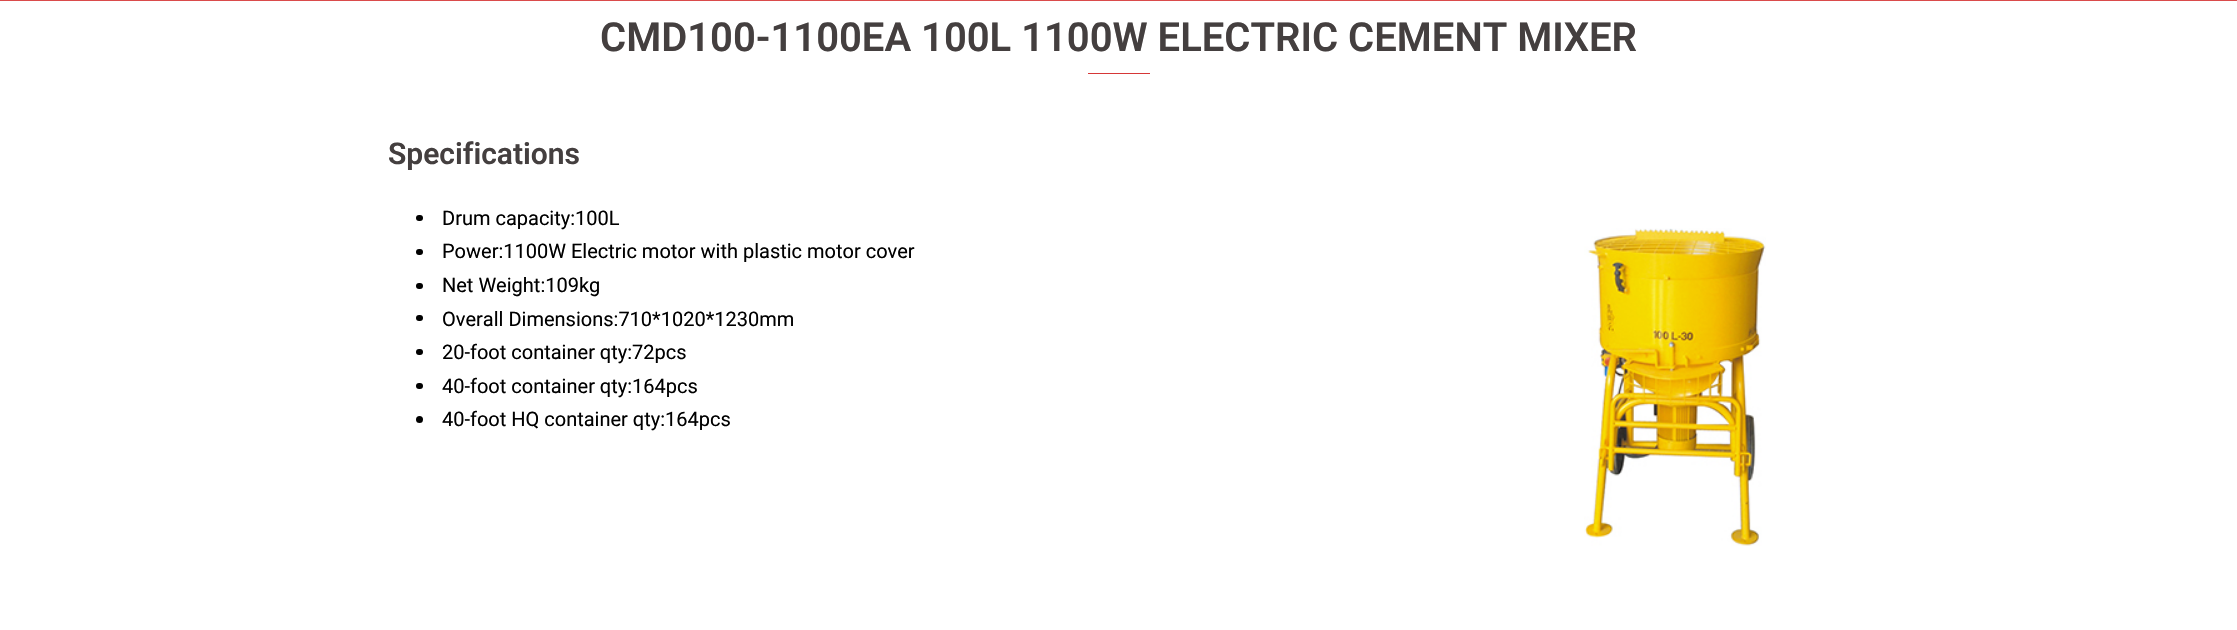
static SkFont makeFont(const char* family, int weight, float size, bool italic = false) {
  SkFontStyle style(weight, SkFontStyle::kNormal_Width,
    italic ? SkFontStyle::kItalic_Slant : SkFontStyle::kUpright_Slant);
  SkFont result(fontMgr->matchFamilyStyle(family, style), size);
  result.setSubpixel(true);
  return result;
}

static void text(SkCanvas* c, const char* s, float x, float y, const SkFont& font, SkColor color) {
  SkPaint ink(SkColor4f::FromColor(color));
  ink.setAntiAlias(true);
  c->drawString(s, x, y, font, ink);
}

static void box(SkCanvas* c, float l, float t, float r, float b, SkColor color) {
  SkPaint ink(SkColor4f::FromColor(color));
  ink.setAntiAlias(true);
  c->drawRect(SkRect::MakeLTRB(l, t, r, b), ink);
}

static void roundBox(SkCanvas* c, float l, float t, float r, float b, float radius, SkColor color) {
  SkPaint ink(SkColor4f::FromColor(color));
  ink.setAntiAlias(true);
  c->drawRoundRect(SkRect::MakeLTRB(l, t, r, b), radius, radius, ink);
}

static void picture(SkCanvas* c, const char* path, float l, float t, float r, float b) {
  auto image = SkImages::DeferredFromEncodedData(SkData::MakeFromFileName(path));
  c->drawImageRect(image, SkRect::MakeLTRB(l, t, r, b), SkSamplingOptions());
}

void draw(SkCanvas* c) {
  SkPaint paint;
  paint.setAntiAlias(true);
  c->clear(0xffffffff);
  box(c, 0, 0, 2237, 1, 0xffda4b4b);
  SkFont face1 = makeFont("Roboto", 600, 40);
  text(c, "CMD100-1100EA 100L 1100W ELECTRIC CEMENT MIXER", 600, 51, face1, 0xff443f3f);
  box(c, 1088, 73, 1150, 74, 0xffd63737);
  SkFont face2 = makeFont("Roboto", 600, 30);
  text(c, "Specifications", 388, 164, face2, 0xff443f3f);
  roundBox(c, 416, 215, 423, 221, 3, 0xff000000);
  SkFont face3 = makeFont("Roboto", 400, 20);
  text(c, "Drum capacity:100L", 442, 225, face3, 0xff000000);
  roundBox(c, 416, 249, 423, 255, 3, 0xff000000);
  text(c, "Power:1100W Electric motor with plastic motor cover", 442, 258, face3, 0xff000000);
  roundBox(c, 416, 283, 423, 289, 3, 0xff000000);
  text(c, "Net Weight:109kg", 442, 292, face3, 0xff000000);
  roundBox(c, 416, 315, 423, 321, 3, 0xff000000);
  text(c, "Overall Dimensions:710*1020*1230mm", 442, 326, face3, 0xff000000);
  roundBox(c, 416, 349, 423, 355, 3, 0xff000000);
  text(c, "20-foot container qty:72pcs", 442, 359, face3, 0xff000000);
  roundBox(c, 416, 383, 423, 389, 3, 0xff000000);
  text(c, "40-foot container qty:164pcs", 442, 393, face3, 0xff000000);
  paint.setColor(0xff000000);
  c->drawCircle(419.5f, 419.5f, 3.5f, paint);
  text(c, "40-foot HQ container qty:164pcs", 442, 426, face3, 0xff000000);
  picture(c, "img_01.png", 1584, 228, 1766, 546);
}
